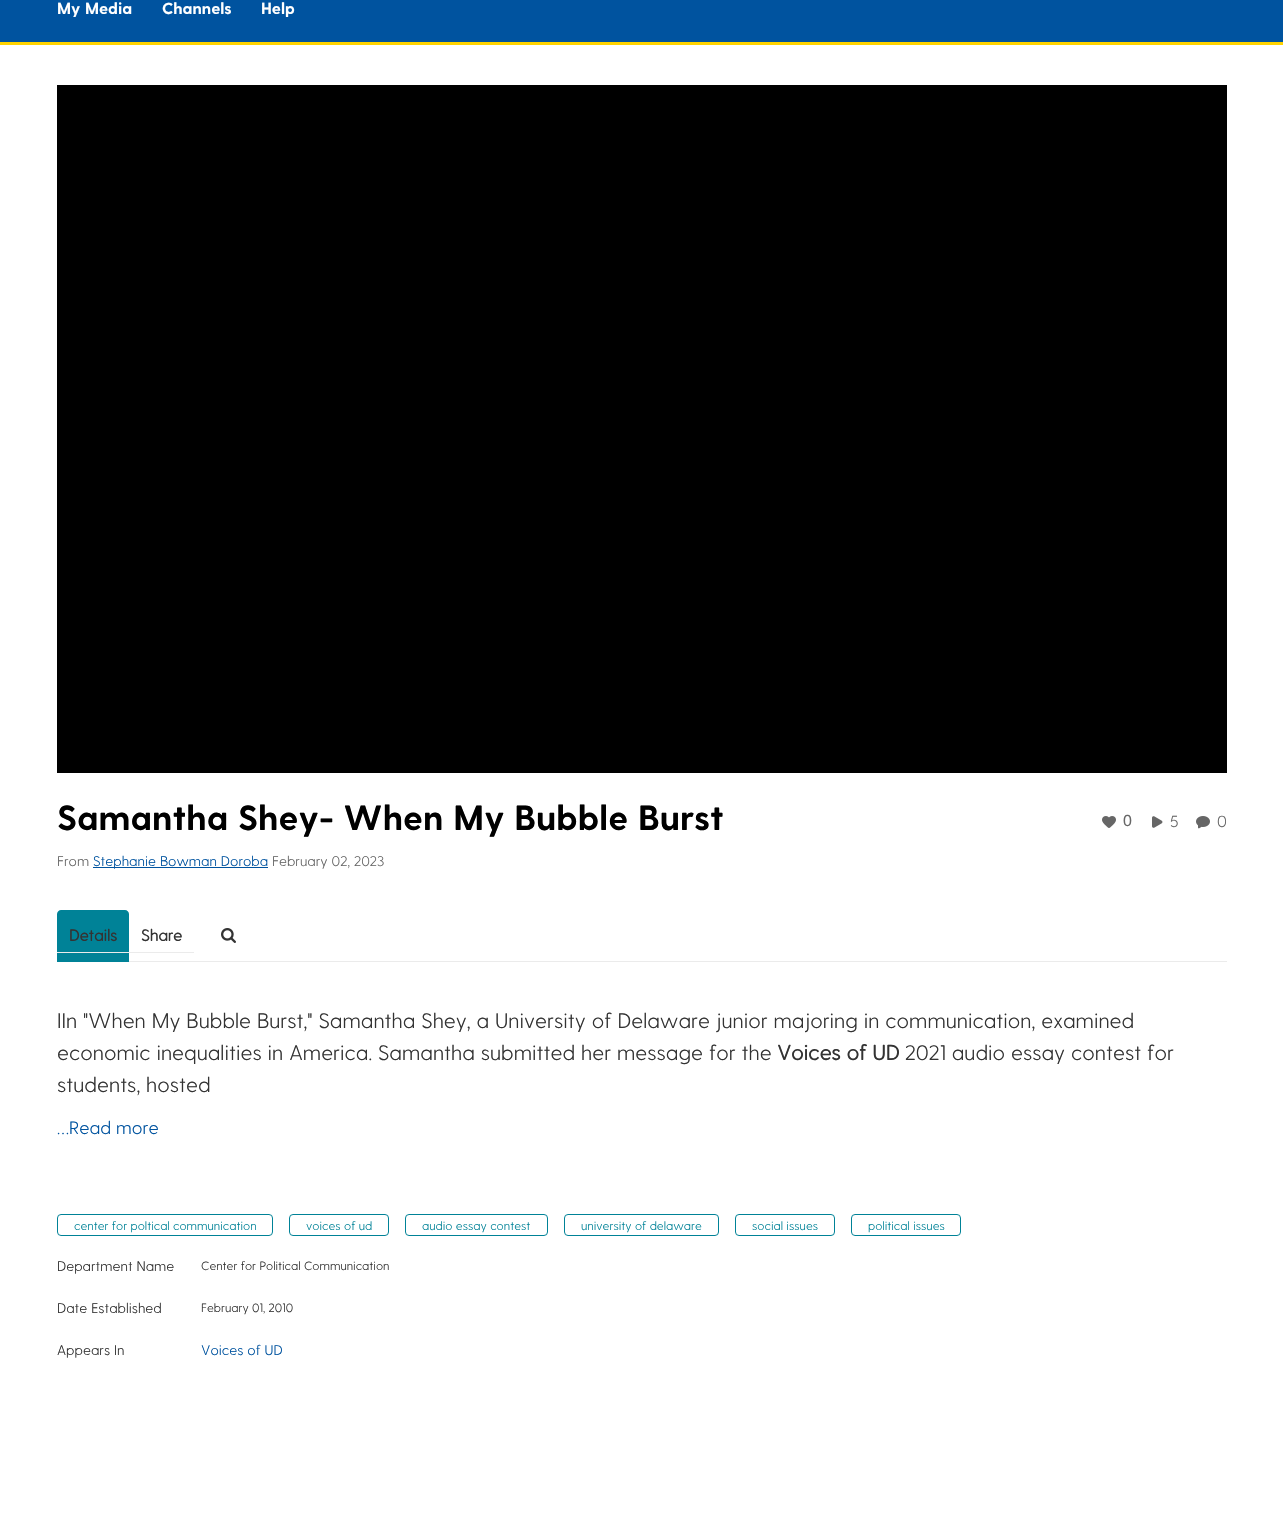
static SkFont makeFont(const char* family, int weight, float size, bool italic = false) {
  SkFontStyle style(weight, SkFontStyle::kNormal_Width,
    italic ? SkFontStyle::kItalic_Slant : SkFontStyle::kUpright_Slant);
  SkFont result(fontMgr->matchFamilyStyle(family, style), size);
  result.setSubpixel(true);
  return result;
}

static void text(SkCanvas* c, const char* s, float x, float y, const SkFont& font, SkColor color) {
  SkPaint ink(SkColor4f::FromColor(color));
  ink.setAntiAlias(true);
  c->drawString(s, x, y, font, ink);
}

static void box(SkCanvas* c, float l, float t, float r, float b, SkColor color) {
  SkPaint ink(SkColor4f::FromColor(color));
  ink.setAntiAlias(true);
  c->drawRect(SkRect::MakeLTRB(l, t, r, b), ink);
}

static void picture(SkCanvas* c, const char* path, float l, float t, float r, float b) {
  auto image = SkImages::DeferredFromEncodedData(SkData::MakeFromFileName(path));
  c->drawImageRect(image, SkRect::MakeLTRB(l, t, r, b), SkSamplingOptions());
}

void draw(SkCanvas* c) {
  SkPaint paint;
  paint.setAntiAlias(true);
  c->clear(0xffffffff);
  box(c, 0, 42, 1283, 45, 0xffffd300);
  box(c, 0, 0, 1283, 42, 0xff00539f);
  SkFont face1 = makeFont("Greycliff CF", 700, 16);
  text(c, "My Media", 57, 14, face1, 0xffffffff);
  text(c, "Channels", 162, 14, face1, 0xffffffff);
  text(c, "Help", 261, 14, face1, 0xffffffff);
  box(c, 57, 85, 1227, 773, 0xff000000);
  SkFont face2 = makeFont("Greycliff CF", 700, 35);
  text(c, "Samantha Shey- When My Bubble Burst", 57, 830, face2, 0xff000000);
  SkFont face3 = makeFont("Greycliff CF", 300, 14);
  text(c, "From", 57, 866, face3, 0xff666666);
  box(c, 93, 867, 268, 868, 0xff00539f);
  text(c, "Stephanie Bowman Doroba", 93, 866, face3, 0xff00539f);
  text(c, "February 02, 2023", 272, 866, face3, 0xff666666);
  picture(c, "img_01.png", 1102, 816, 1116, 828);
  SkFont face4 = makeFont("Liberation Sans", 400, 16);
  text(c, "0", 1123, 826, face4, 0xff666666);
  picture(c, "img_02.png", 1152, 816, 1163, 828);
  SkFont face5 = makeFont("Greycliff CF", 300, 16);
  text(c, "5", 1170, 827, face5, 0xff666666);
  picture(c, "img_03.png", 1196, 816, 1210, 829);
  text(c, "0", 1217, 827, face5, 0xff666666);
  box(c, 129, 961, 1227, 962, 0xffebebeb);
  paint.setColor(0xff008297);
  c->drawPath(SkPathBuilder().moveTo(61, 910).lineTo(125, 910).cubicTo(127, 910, 129, 912, 129, 914).lineTo(129, 962).lineTo(57, 962).lineTo(57, 914).cubicTo(57, 912, 59, 910, 61, 910).close().detach(), paint);
  box(c, 57, 952, 194, 953, 0xffebebeb);
  SkFont face6 = makeFont("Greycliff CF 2", 700, 16);
  text(c, "Details", 69, 941, face6, 0xff333333);
  text(c, "Share", 141, 941, face6, 0xff333333);
  picture(c, "img_04.png", 221, 928, 236, 943);
  SkFont face7 = makeFont("Greycliff CF", 300, 21);
  text(c, "IIn \"When My Bubble Burst,\" Samantha Shey, a University of Delaware junior majoring in communication, examined", 57, 1028, face7, 0xff333333);
  text(c, "economic inequalities in America. Samantha submitted her message for the", 57, 1060, face7, 0xff333333);
  SkFont face8 = makeFont("Greycliff CF 2", 700, 21);
  text(c, "Voices of UD", 777, 1060, face8, 0xff333333);
  text(c, "2021 audio essay contest for", 905, 1060, face7, 0xff333333);
  text(c, "students, hosted", 57, 1092, face7, 0xff333333);
  SkFont face9 = makeFont("Greycliff CF", 300, 18);
  text(c, "…Read more", 57, 1134, face9, 0xff00539f);
  paint.setStyle(SkPaint::kStroke_Style);
  paint.setStrokeWidth(1);
  c->drawRoundRect(SkRect::MakeLTRB(57.5f, 1214.5f, 272.5f, 1235.5f), 3.5f, 3.5f, paint);
  SkFont face10 = makeFont("Greycliff CF", 300, 12);
  text(c, "center for poltical communication", 74, 1230, face10, 0xff008297);
  c->drawRoundRect(SkRect::MakeLTRB(289.5f, 1214.5f, 388.5f, 1235.5f), 3.5f, 3.5f, paint);
  text(c, "voices of ud", 306, 1230, face10, 0xff008297);
  c->drawRoundRect(SkRect::MakeLTRB(405.5f, 1214.5f, 547.5f, 1235.5f), 3.5f, 3.5f, paint);
  text(c, "audio essay contest", 422, 1230, face10, 0xff008297);
  c->drawRoundRect(SkRect::MakeLTRB(564.5f, 1214.5f, 718.5f, 1235.5f), 3.5f, 3.5f, paint);
  text(c, "university of delaware", 581, 1230, face10, 0xff008297);
  c->drawRoundRect(SkRect::MakeLTRB(735.5f, 1214.5f, 834.5f, 1235.5f), 3.5f, 3.5f, paint);
  text(c, "social issues", 752, 1230, face10, 0xff008297);
  c->drawRoundRect(SkRect::MakeLTRB(851.5f, 1214.5f, 960.5f, 1235.5f), 3.5f, 3.5f, paint);
  text(c, "political issues", 868, 1230, face10, 0xff008297);
  text(c, "Department Name", 57, 1271, face3, 0xff333333);
  text(c, "Center for Political Communication", 201, 1270, face10, 0xff333333);
  text(c, "Date Established", 57, 1313, face3, 0xff333333);
  text(c, "February 01, 2010", 201, 1312, face10, 0xff333333);
  text(c, "Appears In", 57, 1355, face3, 0xff333333);
  text(c, "Voices of UD", 201, 1355, face3, 0xff00539f);
}
